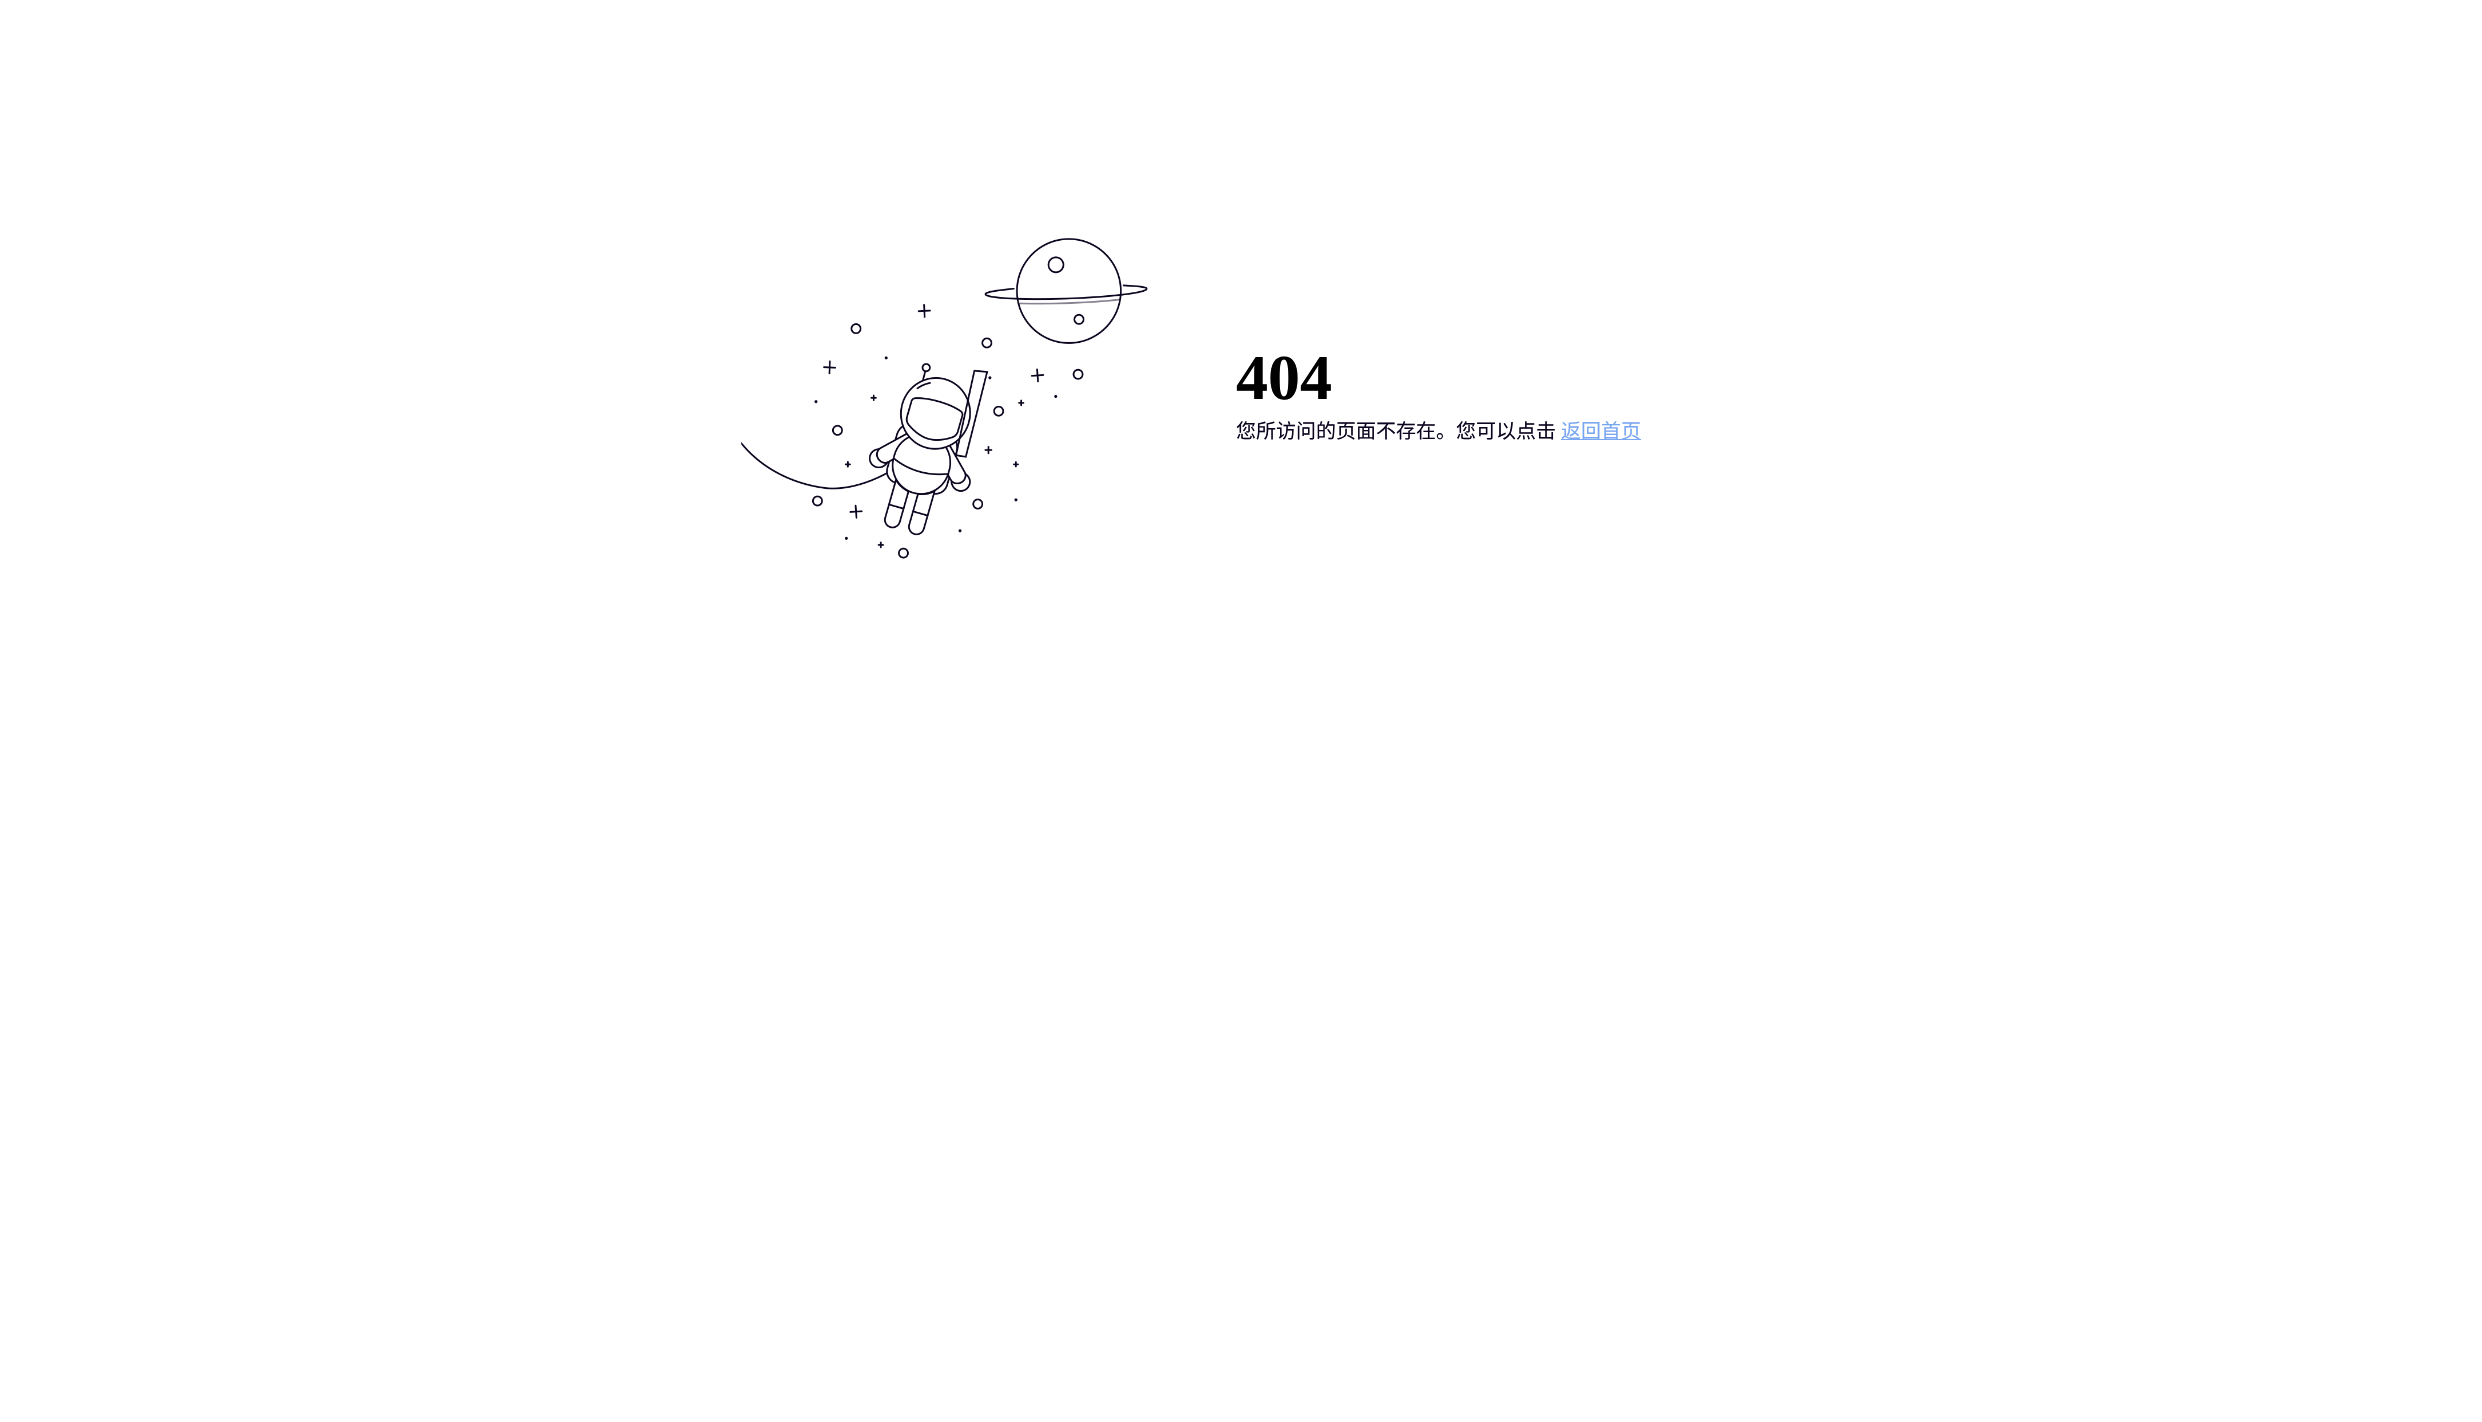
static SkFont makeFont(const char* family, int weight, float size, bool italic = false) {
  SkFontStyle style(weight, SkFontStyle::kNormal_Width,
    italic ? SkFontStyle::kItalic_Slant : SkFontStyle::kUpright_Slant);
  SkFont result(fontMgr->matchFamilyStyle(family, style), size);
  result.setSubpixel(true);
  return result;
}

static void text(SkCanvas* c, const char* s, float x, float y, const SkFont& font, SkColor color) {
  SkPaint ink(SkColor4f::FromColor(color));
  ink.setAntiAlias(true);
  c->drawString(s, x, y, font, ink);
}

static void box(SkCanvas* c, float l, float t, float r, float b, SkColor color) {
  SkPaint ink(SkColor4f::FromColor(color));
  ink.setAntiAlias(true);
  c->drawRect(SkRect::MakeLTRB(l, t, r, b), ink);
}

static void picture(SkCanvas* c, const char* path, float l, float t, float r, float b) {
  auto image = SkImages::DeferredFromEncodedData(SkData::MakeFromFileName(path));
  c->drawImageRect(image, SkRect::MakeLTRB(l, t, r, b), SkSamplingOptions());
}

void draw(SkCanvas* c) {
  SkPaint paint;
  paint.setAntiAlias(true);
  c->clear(0xffffffff);
  picture(c, "img_01.png", 741, 238, 1148, 559);
  SkFont face1 = makeFont("Liberation Serif", 700, 64);
  text(c, "404", 1236, 399, face1, 0xff000000);
  SkFont face2 = makeFont("Noto Sans CJK SC", 400, 20);
  text(c, "您所访问的页面不存在。您可以点击", 1236, 438, face2, 0xff0e0620);
  box(c, 1561, 439, 1641, 440, 0xff79a7f1);
  text(c, "返回首页", 1561, 438, face2, 0xff79a7f1);
}
